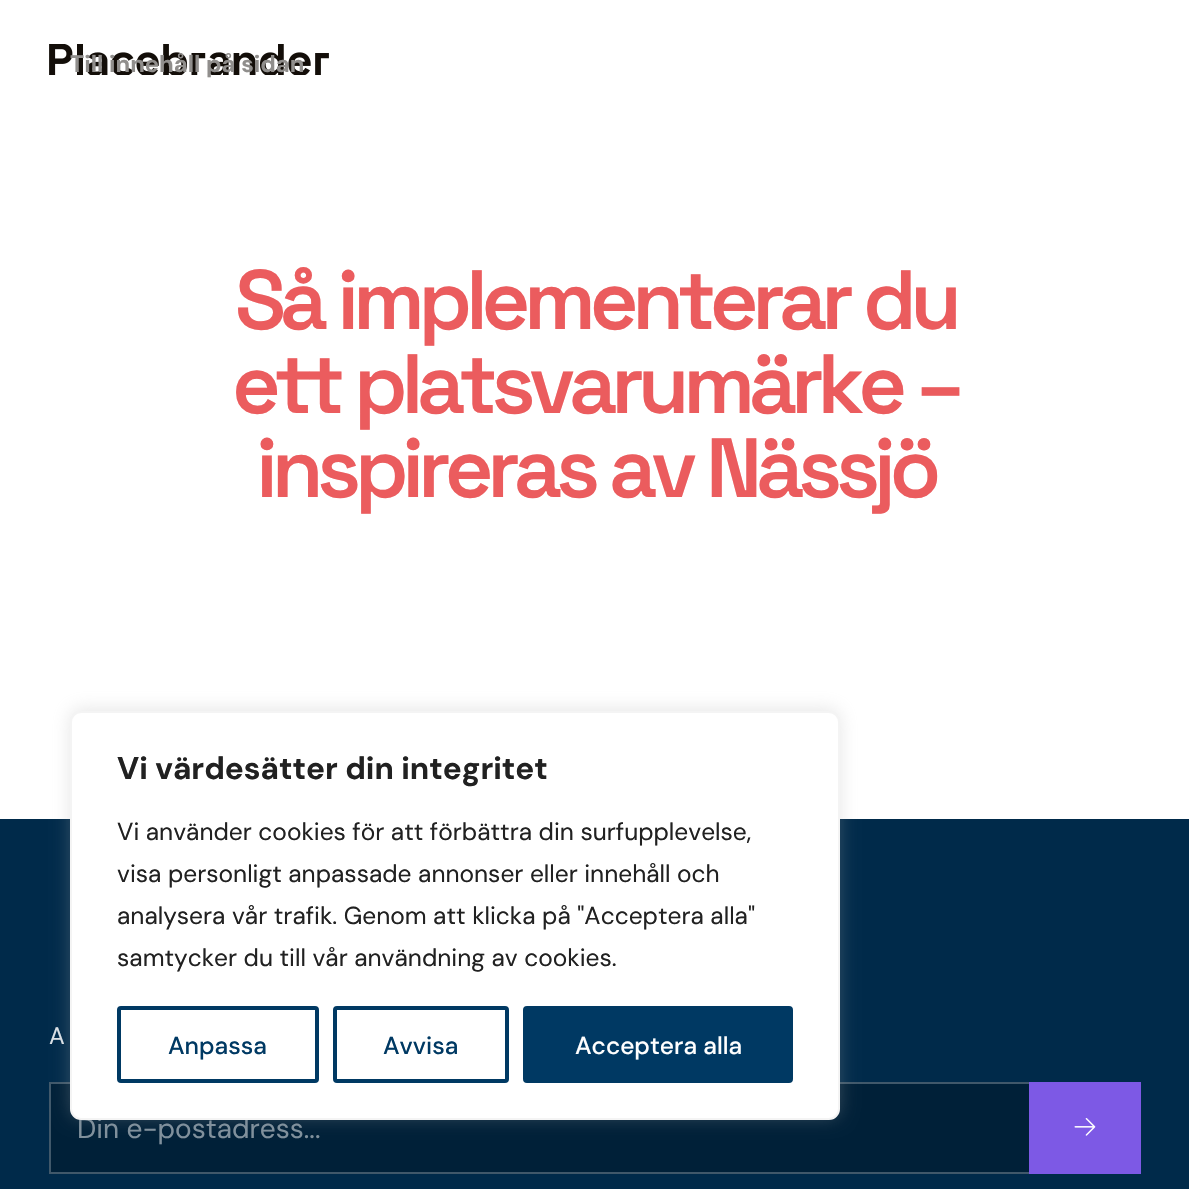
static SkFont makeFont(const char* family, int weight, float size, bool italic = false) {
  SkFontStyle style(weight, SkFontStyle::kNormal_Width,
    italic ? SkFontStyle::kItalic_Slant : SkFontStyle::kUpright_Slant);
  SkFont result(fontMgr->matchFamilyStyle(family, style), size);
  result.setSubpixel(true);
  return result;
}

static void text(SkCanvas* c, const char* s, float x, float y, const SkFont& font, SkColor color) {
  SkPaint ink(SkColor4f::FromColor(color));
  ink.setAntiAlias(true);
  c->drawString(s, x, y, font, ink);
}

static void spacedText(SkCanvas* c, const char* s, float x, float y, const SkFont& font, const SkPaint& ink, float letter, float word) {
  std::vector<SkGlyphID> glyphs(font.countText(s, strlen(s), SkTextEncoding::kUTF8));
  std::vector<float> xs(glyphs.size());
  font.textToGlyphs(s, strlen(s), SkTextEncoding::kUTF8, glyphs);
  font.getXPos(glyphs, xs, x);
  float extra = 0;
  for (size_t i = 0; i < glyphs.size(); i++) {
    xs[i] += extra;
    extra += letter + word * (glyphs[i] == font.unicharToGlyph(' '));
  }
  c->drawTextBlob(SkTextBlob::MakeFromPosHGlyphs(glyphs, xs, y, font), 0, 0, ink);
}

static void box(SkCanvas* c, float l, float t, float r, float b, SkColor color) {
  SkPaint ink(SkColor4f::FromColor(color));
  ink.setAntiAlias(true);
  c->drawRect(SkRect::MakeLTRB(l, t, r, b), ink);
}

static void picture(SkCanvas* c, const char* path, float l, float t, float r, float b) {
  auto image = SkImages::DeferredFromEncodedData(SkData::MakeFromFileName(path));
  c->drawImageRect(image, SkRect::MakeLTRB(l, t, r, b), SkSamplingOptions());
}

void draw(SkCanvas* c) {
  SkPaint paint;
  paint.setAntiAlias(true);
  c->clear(0xffffffff);
  picture(c, "img_01.png", 49, 44, 329, 75);
  SkFont face1 = makeFont("DM Sans", 700, 23.75f);
  text(c, "Till innehåll på sidan", 70, 72, face1, 0xff908e8c);
  SkFont face2 = makeFont("Space Grotesk", 600, 84);
  paint.setColor(0xffeb5c5e);
  spacedText(c, "Så implementerar du", 235, 329, face2, paint, -6.25f, 0);
  spacedText(c, "ett platsvarumärke –", 232, 413, face2, paint, -6.25f, 0);
  spacedText(c, "inspireras av Nässjö", 256, 497, face2, paint, -6.25f, 0);
  box(c, 0, 819, 1189, 1189, 0xff002a4a);
  box(c, 51, 1084, 1029, 1172, 0xff002038);
  paint.setStyle(SkPaint::kStroke_Style);
  paint.setStrokeWidth(2);
  paint.setColor(0xff40586a);
  c->drawRect(SkRect::MakeLTRB(50, 1083, 1140, 1173), paint);
  paint.setStyle(SkPaint::kFill_Style);
  paint.setColor(0x4dacabab);
  paint.setMaskFilter(SkMaskFilter::MakeBlur(kNormal_SkBlurStyle, 9));
  c->drawRoundRect(SkRect::MakeLTRB(70, 709, 840, 1118), 11, 11, paint);
  paint.setMaskFilter(nullptr);
  SkFont face3 = makeFont("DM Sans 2", 400, 28);
  text(c, "Din e-postadress...", 77, 1138, face3, 0xff80909c);
  paint.setColor(0xffffffff);
  c->drawRoundRect(SkRect::MakeLTRB(71, 712, 839, 1119), 10, 10, paint);
  paint.setStyle(SkPaint::kStroke_Style);
  paint.setColor(0xfff4f4f4);
  c->drawRoundRect(SkRect::MakeLTRB(71, 712, 839, 1119), 10, 10, paint);
  SkFont face4 = makeFont("DM Sans 2", 700, 31.5f);
  text(c, "Vi värdesätter din integritet", 117, 779, face4, 0xff212121);
  SkFont face5 = makeFont("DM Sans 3", 400, 24.5f);
  text(c, "Vi använder cookies för att förbättra din surfupplevelse,", 117, 840, face5, 0xff212121);
  text(c, "visa personligt anpassade annonser eller innehåll och", 117, 882, face5, 0xff212121);
  text(c, "analysera vår trafik. Genom att klicka på \"Acceptera alla\"", 117, 924, face5, 0xff212121);
  text(c, "samtycker du till vår användning av cookies.", 117, 966, face5, 0xff212121);
  paint.setStrokeWidth(4);
  paint.setColor(0xff003963);
  c->drawRoundRect(SkRect::MakeLTRB(119, 1008, 317, 1081), 2, 2, paint);
  SkFont face6 = makeFont("DM Sans", 500, 24.5f);
  text(c, "Anpassa", 168, 1054, face6, 0xff003963);
  c->drawRoundRect(SkRect::MakeLTRB(335, 1008, 507, 1081), 2, 2, paint);
  text(c, "Avvisa", 383, 1054, face6, 0xff003963);
  paint.setStyle(SkPaint::kFill_Style);
  c->drawRoundRect(SkRect::MakeLTRB(525, 1008, 791, 1081), 2, 2, paint);
  paint.setStyle(SkPaint::kStroke_Style);
  c->drawRoundRect(SkRect::MakeLTRB(525, 1008, 791, 1081), 2, 2, paint);
  text(c, "Acceptera alla", 575, 1054, face6, 0xffffffff);
  SkFont face7 = makeFont("DM Sans", 400, 23.75f);
  text(c, "A", 49, 1044, face7, 0xffd9dfe4);
  box(c, 1029, 1082, 1141, 1174, 0xff7d59e5);
  picture(c, "img_02.png", 1074, 1118, 1096, 1136);
}
